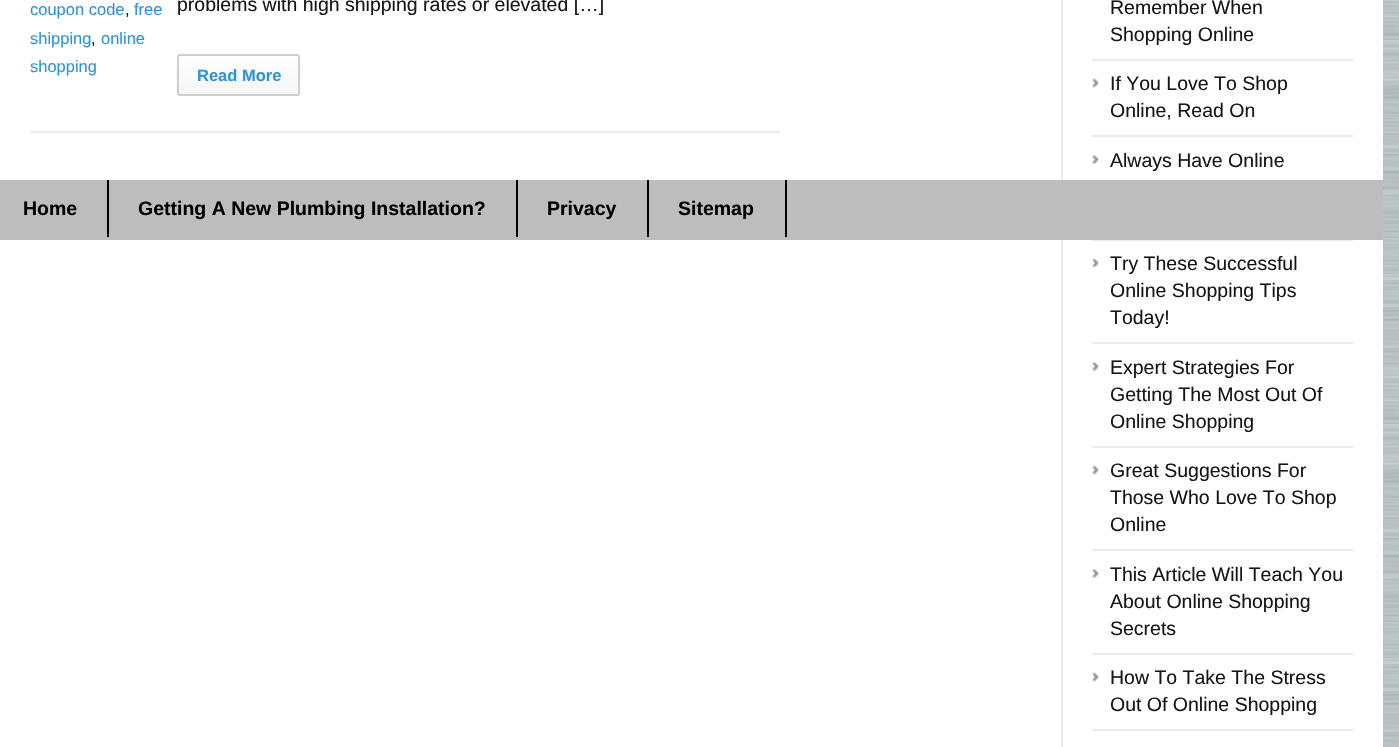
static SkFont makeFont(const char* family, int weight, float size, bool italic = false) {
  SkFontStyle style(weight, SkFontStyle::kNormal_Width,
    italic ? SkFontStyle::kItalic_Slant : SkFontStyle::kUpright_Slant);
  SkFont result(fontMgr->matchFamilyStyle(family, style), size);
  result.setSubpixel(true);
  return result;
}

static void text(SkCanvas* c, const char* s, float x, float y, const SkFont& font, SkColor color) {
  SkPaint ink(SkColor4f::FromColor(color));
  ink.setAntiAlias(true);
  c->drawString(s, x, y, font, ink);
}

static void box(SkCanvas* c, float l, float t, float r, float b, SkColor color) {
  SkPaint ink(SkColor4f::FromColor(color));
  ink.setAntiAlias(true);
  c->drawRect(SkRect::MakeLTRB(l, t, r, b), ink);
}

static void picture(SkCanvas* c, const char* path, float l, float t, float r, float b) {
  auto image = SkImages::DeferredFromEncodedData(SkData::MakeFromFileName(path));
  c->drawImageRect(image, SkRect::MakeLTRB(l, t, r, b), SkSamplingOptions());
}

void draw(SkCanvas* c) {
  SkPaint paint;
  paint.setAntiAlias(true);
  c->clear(0xffffffff);
  picture(c, "img_01.png", 1383, 0, 1399, 747);
  SkFont face1 = makeFont("Liberation Sans", 400, 16.5f);
  text(c, "coupon code", 30, 15, face1, 0xff2f94d4);
  text(c, ",", 125, 15, face1, 0xff161618);
  text(c, "free", 134, 15, face1, 0xff2f94d4);
  text(c, "shipping", 30, 44, face1, 0xff2f94d4);
  text(c, ",", 91, 44, face1, 0xff161618);
  text(c, "online", 101, 44, face1, 0xff2f94d4);
  text(c, "shopping", 30, 72, face1, 0xff2f94d4);
  SkFont face2 = makeFont("Liberation Sans", 400, 19.5f);
  text(c, "problems with high shipping rates or elevated […]", 177, 11, face2, 0xff161618);
  c->save();
  c->clipRect(SkRect::MakeLTRB(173, 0, 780, 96));
  paint.setColor(0x0d000000);
  paint.setMaskFilter(SkMaskFilter::MakeBlur(kNormal_SkBlurStyle, 1.5f));
  c->drawRoundRect(SkRect::MakeLTRB(177, 56, 300, 98), 3, 3, paint);
  paint.setMaskFilter(nullptr);
  c->restore();
  c->save();
  c->clipPath(SkPathBuilder().moveTo(180, 54).lineTo(297, 54).cubicTo(298.5f, 54, 300, 55.5f, 300, 57).lineTo(300, 93).cubicTo(300, 94.5f, 298.5f, 96, 297, 96).lineTo(180, 96).cubicTo(178.5f, 96, 177, 94.5f, 177, 93).lineTo(177, 57).cubicTo(177, 55.5f, 178.5f, 54, 180, 54).close().detach(), true);
  {
    const SkColor colors[] = {0xffffffff, 0xfff5f5f5};
    const float stops[] = {0, 1};
    const SkPoint ends[] = {{239, 55}, {239, 95}};
    paint.setShader(SkGradientShader::MakeLinear(ends, colors, stops, 2, SkTileMode::kClamp));
    paint.setAlpha(255);
  }
  c->drawRect(SkRect::MakeLTRB(177, 56, 300, 95), paint);
  c->restore();
  paint.setStyle(SkPaint::kStroke_Style);
  paint.setStrokeWidth(2);
  paint.setShader(nullptr);
  paint.setColor(0xffcdd0d1);
  c->drawRoundRect(SkRect::MakeLTRB(178, 55, 299, 95), 2, 2, paint);
  SkFont face3 = makeFont("Liberation Sans", 700, 16.5f);
  text(c, "Read More", 197, 81, face3, 0xff2f94d4);
  box(c, 30, 131, 780, 133, 0xffebebeb);
  box(c, 1061, 0, 1063, 747, 0xffebebeb);
  box(c, 1092, 59, 1353, 61, 0xffebebeb);
  text(c, "Remember When", 1110, 14, face2, 0xff161618);
  text(c, "Shopping Online", 1110, 41, face2, 0xff161618);
  picture(c, "img_02.png", 1092, 78, 1100, 88);
  box(c, 1092, 135, 1353, 137, 0xffebebeb);
  text(c, "If You Love To Shop", 1110, 90, face2, 0xff161618);
  text(c, "Online, Read On", 1110, 117, face2, 0xff161618);
  picture(c, "img_03.png", 1092, 155, 1100, 165);
  box(c, 1092, 240, 1353, 241, 0xffebebeb);
  text(c, "Always Have Online", 1110, 167, face2, 0xff161618);
  picture(c, "img_02.png", 1092, 258, 1100, 268);
  box(c, 1092, 342, 1353, 344, 0xffebebeb);
  text(c, "Try These Successful", 1110, 270, face2, 0xff161618);
  text(c, "Online Shopping Tips", 1110, 297, face2, 0xff161618);
  text(c, "Today!", 1110, 324, face2, 0xff161618);
  picture(c, "img_03.png", 1092, 362, 1100, 372);
  box(c, 1092, 446, 1353, 448, 0xffebebeb);
  text(c, "Expert Strategies For", 1110, 374, face2, 0xff161618);
  text(c, "Getting The Most Out Of", 1110, 401, face2, 0xff161618);
  text(c, "Online Shopping", 1110, 428, face2, 0xff161618);
  picture(c, "img_02.png", 1092, 465, 1100, 475);
  box(c, 1092, 549, 1353, 551, 0xffebebeb);
  text(c, "Great Suggestions For", 1110, 477, face2, 0xff161618);
  text(c, "Those Who Love To Shop", 1110, 504, face2, 0xff161618);
  text(c, "Online", 1110, 531, face2, 0xff161618);
  picture(c, "img_03.png", 1092, 569, 1100, 579);
  box(c, 1092, 653, 1353, 655, 0xffebebeb);
  text(c, "This Article Will Teach You", 1110, 581, face2, 0xff161618);
  text(c, "About Online Shopping", 1110, 608, face2, 0xff161618);
  text(c, "Secrets", 1110, 635, face2, 0xff161618);
  picture(c, "img_02.png", 1092, 672, 1100, 682);
  box(c, 1092, 729, 1353, 731, 0xffebebeb);
  text(c, "How To Take The Stress", 1110, 684, face2, 0xff161618);
  text(c, "Out Of Online Shopping", 1110, 711, face2, 0xff161618);
  box(c, 0, 180, 1383, 240, 0xffbdbdbd);
  box(c, 107, 180, 109, 237, 0xff000000);
  SkFont face4 = makeFont("Liberation Sans", 700, 19.5f);
  text(c, "Home", 23, 215, face4, 0xff000000);
  box(c, 516, 180, 518, 237, 0xff000000);
  text(c, "Getting A New Plumbing Installation?", 138, 215, face4, 0xff000000);
  box(c, 647, 180, 649, 237, 0xff000000);
  text(c, "Privacy", 547, 215, face4, 0xff000000);
  box(c, 785, 180, 787, 237, 0xff000000);
  text(c, "Sitemap", 678, 215, face4, 0xff000000);
}
